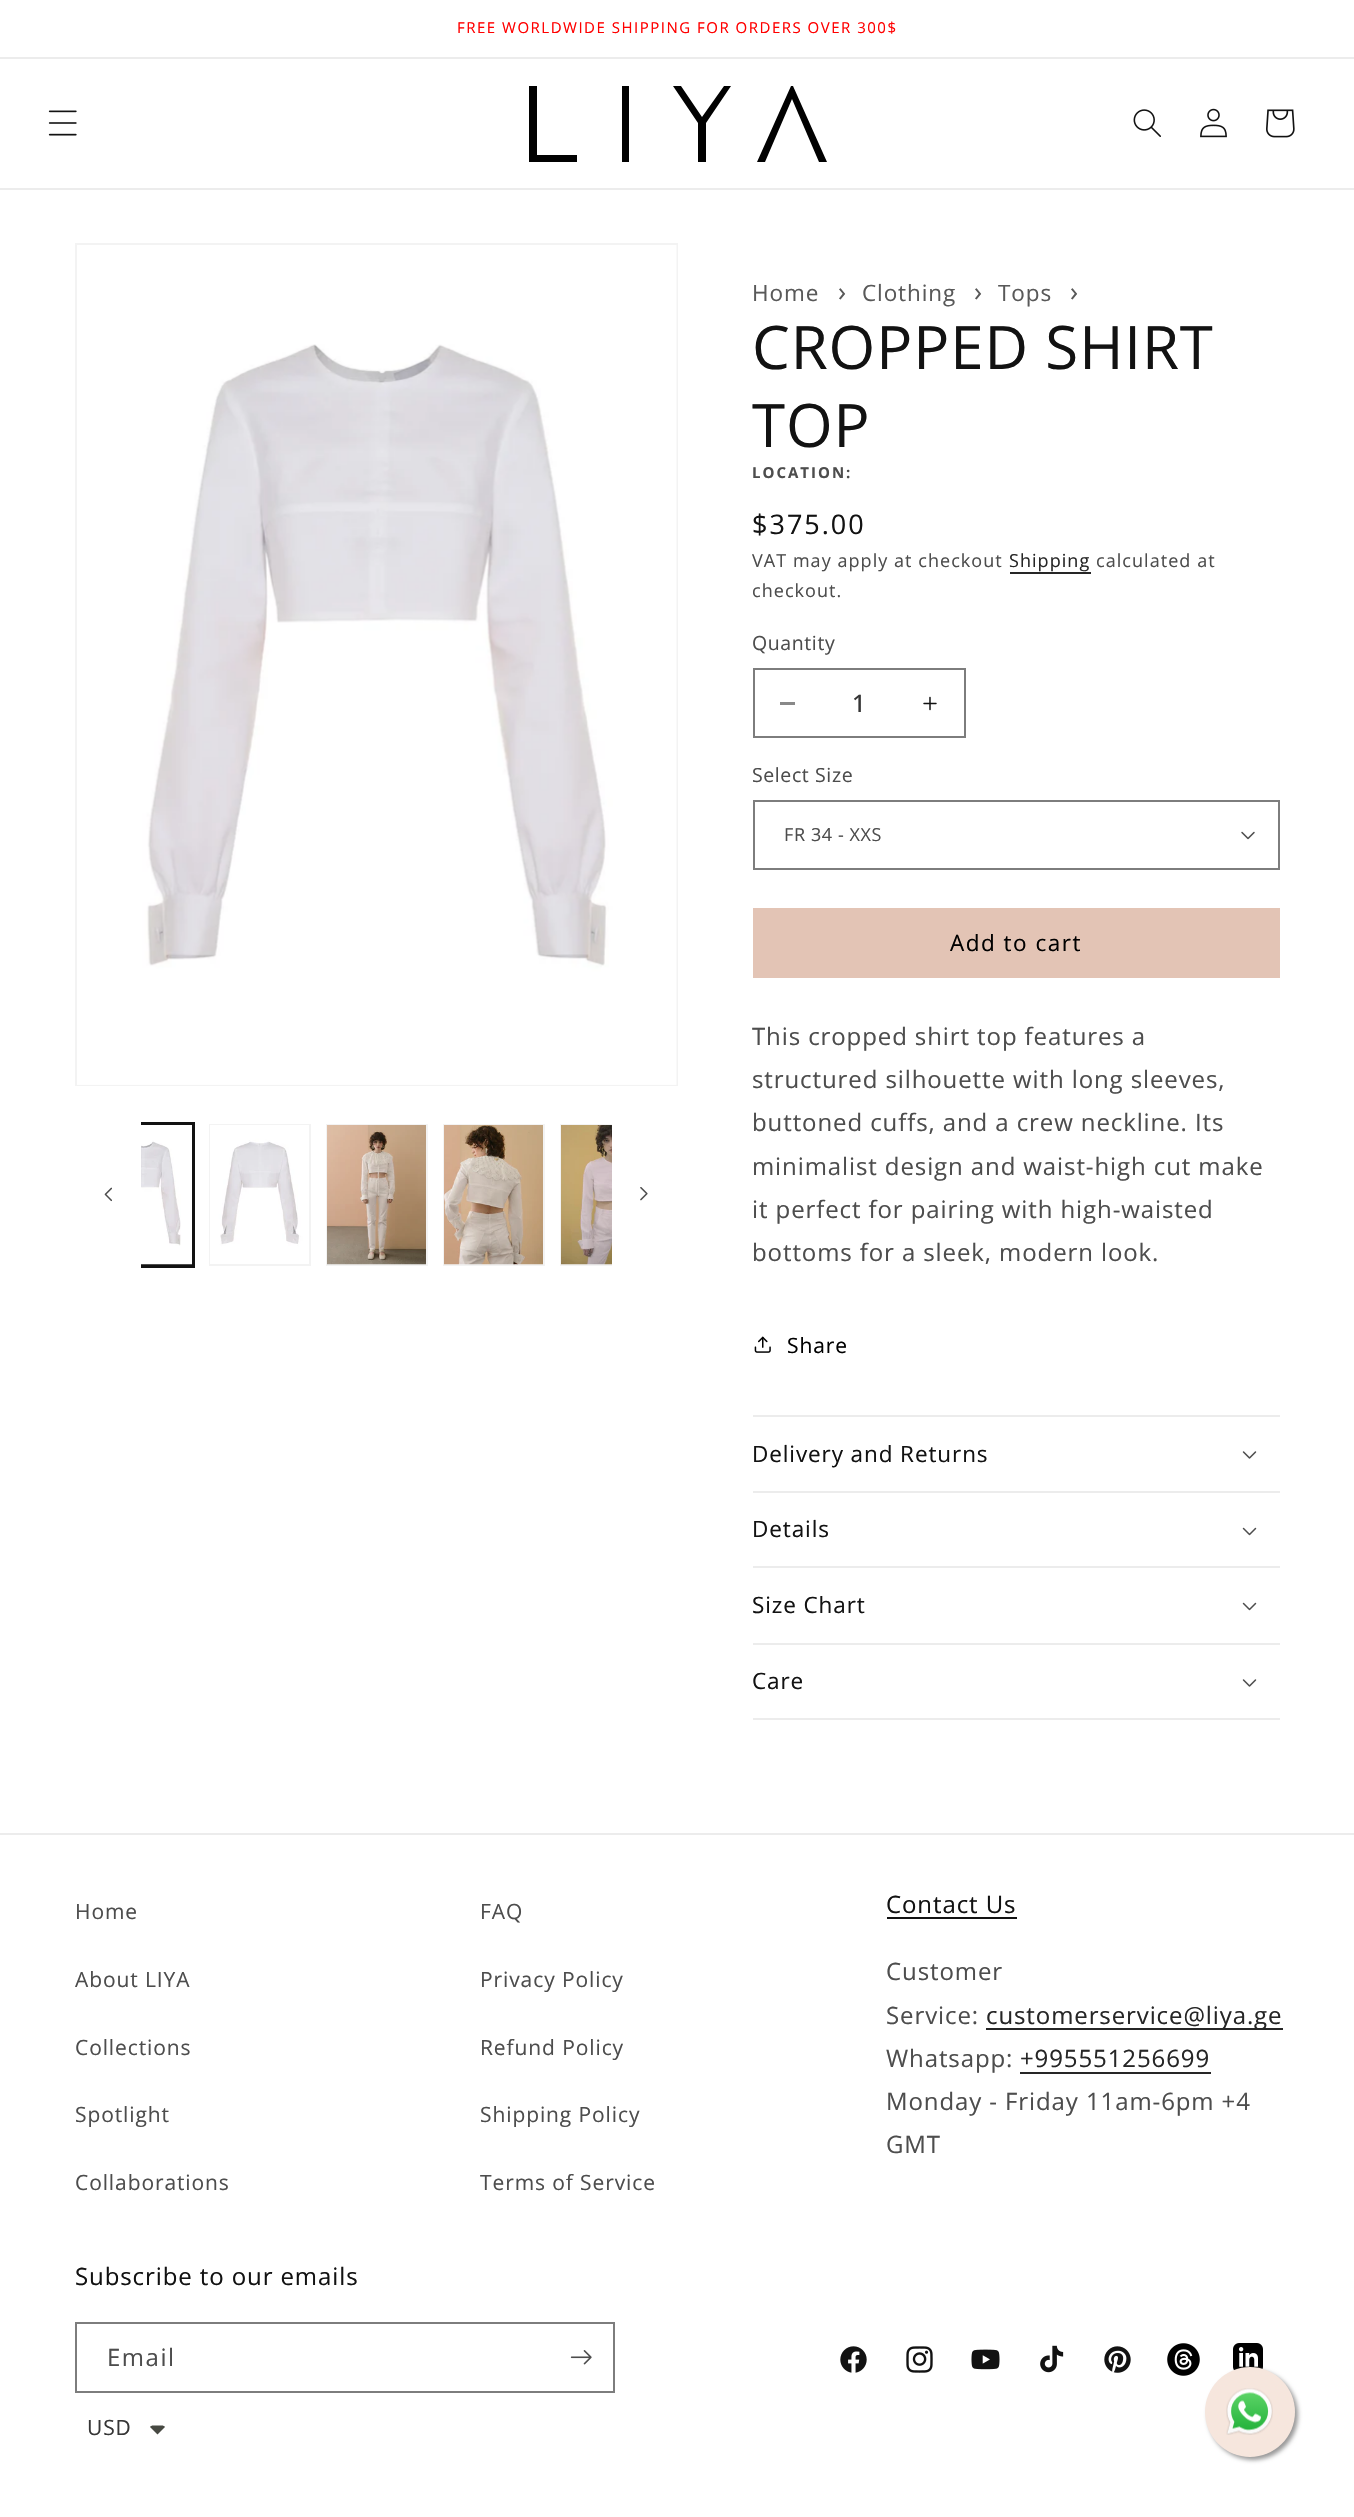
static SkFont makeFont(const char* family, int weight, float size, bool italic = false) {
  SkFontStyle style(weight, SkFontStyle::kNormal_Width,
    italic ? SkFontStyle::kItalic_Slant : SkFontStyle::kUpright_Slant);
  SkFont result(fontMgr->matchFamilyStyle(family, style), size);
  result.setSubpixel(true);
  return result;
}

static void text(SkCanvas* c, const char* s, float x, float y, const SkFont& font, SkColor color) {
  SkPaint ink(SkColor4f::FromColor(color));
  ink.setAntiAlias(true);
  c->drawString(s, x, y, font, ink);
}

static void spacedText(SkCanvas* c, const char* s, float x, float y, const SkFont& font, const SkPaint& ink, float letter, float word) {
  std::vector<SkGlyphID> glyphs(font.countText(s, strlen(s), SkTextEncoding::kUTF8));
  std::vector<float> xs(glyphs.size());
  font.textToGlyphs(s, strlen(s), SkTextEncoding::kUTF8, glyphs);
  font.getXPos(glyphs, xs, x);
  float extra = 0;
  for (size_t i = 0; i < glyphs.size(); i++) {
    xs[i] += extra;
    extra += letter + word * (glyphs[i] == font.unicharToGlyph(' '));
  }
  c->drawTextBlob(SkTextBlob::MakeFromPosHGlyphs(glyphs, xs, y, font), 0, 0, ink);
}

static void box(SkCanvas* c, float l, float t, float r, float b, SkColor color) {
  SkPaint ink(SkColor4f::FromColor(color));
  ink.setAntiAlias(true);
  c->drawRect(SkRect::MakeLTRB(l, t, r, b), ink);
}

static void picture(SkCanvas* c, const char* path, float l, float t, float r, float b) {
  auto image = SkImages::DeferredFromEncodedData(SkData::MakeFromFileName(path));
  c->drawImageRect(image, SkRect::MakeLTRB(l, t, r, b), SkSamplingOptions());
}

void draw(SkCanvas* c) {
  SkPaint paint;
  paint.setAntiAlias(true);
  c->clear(0xffffffff);
  box(c, 0, 57, 1354, 59, 0xffececec);
  SkFont face1 = makeFont("Open Sans", 400, 15);
  paint.setColor(0xffff0000);
  spacedText(c, "FREE WORLDWIDE SHIPPING FOR ORDERS OVER 300$", 457, 33, face1, paint, 1.5f, 0);
  box(c, 0, 188, 1354, 190, 0xffececec);
  picture(c, "img_01.png", 48, 110, 77, 136);
  paint.setColor(0xff010101);
  c->drawPath(SkPathBuilder().moveTo(537, 155).lineTo(537, 86).lineTo(529, 86).lineTo(529, 162).lineTo(577, 162).lineTo(577, 155).close().detach(), paint);
  box(c, 622, 86, 629, 162, 0xff010101);
  c->drawPath(SkPathBuilder().moveTo(731, 86).lineTo(724, 86).lineTo(702, 117).lineTo(681, 86).lineTo(673, 86).lineTo(698, 123).lineTo(698, 162).lineTo(706, 162).lineTo(706, 123).close().detach(), paint);
  c->drawPath(SkPathBuilder().moveTo(793, 86).lineTo(791, 86).lineTo(757, 162).lineTo(765, 162).lineTo(792, 99).lineTo(819, 162).lineTo(827, 162).close().detach(), paint);
  picture(c, "img_02.png", 1133, 109, 1161, 137);
  picture(c, "img_03.png", 1200, 108, 1227, 138);
  picture(c, "img_04.png", 1266, 109, 1295, 138);
  paint.setStyle(SkPaint::kStroke_Style);
  paint.setStrokeWidth(2);
  paint.setColor(0xfff3f3f3);
  c->drawRect(SkRect::MakeLTRB(76, 244, 677, 1085), paint);
  picture(c, "img_05.png", 77, 245, 677, 1085);
  picture(c, "img_11.png", 104, 1187, 112, 1202);
  c->save();
  c->clipRect(SkRect::MakeLTRB(141, 1116, 612, 1274));
  paint.setColor(0xff121212);
  c->drawRect(SkRect::MakeLTRB(91, 1123, 194, 1267), paint);
  c->drawRect(SkRect::MakeLTRB(93, 1125, 193, 1265), paint);
  c->restore();
  picture(c, "img_06.png", 141, 1125, 192, 1265);
  paint.setColor(0xfff3f3f3);
  c->drawRect(SkRect::MakeLTRB(210, 1125, 310, 1265), paint);
  picture(c, "img_07.png", 210, 1125, 309, 1264);
  c->drawRect(SkRect::MakeLTRB(327, 1125, 427, 1265), paint);
  picture(c, "img_08.png", 327, 1125, 426, 1265);
  c->drawRect(SkRect::MakeLTRB(444, 1125, 544, 1265), paint);
  picture(c, "img_09.png", 444, 1125, 543, 1265);
  c->save();
  c->clipRect(SkRect::MakeLTRB(141, 1116, 612, 1274));
  c->drawRect(SkRect::MakeLTRB(561, 1125, 659, 1265), paint);
  c->restore();
  picture(c, "img_10.png", 561, 1125, 612, 1265);
  picture(c, "img_12.png", 640, 1187, 648, 1201);
  SkFont face2 = makeFont("Open Sans", 400, 22.5f);
  paint.setStyle(SkPaint::kFill_Style);
  paint.setColor(0xff595959);
  spacedText(c, "Home", 752, 301, face2, paint, 0.9f, 0);
  SkFont face3 = makeFont("Open Sans", 400, 27);
  spacedText(c, "›", 838, 301, face3, paint, 0.9f, 0);
  spacedText(c, "Clothing", 862, 301, face2, paint, 0.9f, 0);
  spacedText(c, "›", 974, 301, face3, paint, 0.9f, 0);
  spacedText(c, "Tops", 998, 301, face2, paint, 0.9f, 0);
  spacedText(c, "›", 1070, 301, face3, paint, 0.9f, 0);
  SkFont face4 = makeFont("Open Sans", 400, 60);
  paint.setColor(0xff121212);
  spacedText(c, "CROPPED SHIRT", 752, 369, face4, paint, 0.9f, 0);
  spacedText(c, "TOP", 752, 447, face4, paint, 0.9f, 0);
  SkFont face5 = makeFont("Open Sans", 700, 15);
  paint.setColor(0xff4d4d4d);
  spacedText(c, "LOCATION:", 752, 478, face5, paint, 2, 0);
  paint.setColor(0xff121212);
  spacedText(c, "$375.00", 752, 534, face3, paint, 2, 0);
  SkFont face6 = makeFont("Open Sans", 400, 18);
  paint.setColor(0xff4d4d4d);
  spacedText(c, "VAT may apply at checkout", 752, 567, face6, paint, 1.05f, 0);
  paint.setColor(0xff262626);
  spacedText(c, "Shipping", 1009, 567, face6, paint, 1.05f, 0);
  box(c, 1010, 572, 1091, 574, 0xff262626);
  paint.setColor(0xff4d4d4d);
  spacedText(c, "calculated at", 1096, 567, face6, paint, 1.05f, 0);
  spacedText(c, "checkout.", 752, 597, face6, paint, 1.05f, 0);
  SkFont face7 = makeFont("Open Sans", 400, 19.5f);
  spacedText(c, "Quantity", 752, 650, face7, paint, 0.6f, 0);
  box(c, 780, 702, 795, 705, 0xff898989);
  picture(c, "img_13.png", 923, 696, 937, 711);
  paint.setStyle(SkPaint::kStroke_Style);
  paint.setColor(0xff7d7d7d);
  c->drawRect(SkRect::MakeLTRB(754, 669, 965, 737), paint);
  SkFont face8 = makeFont("Open Sans", 500, 24);
  text(c, "1", 852, 712, face8, 0xff363636);
  paint.setStyle(SkPaint::kFill_Style);
  paint.setColor(0xff4d4d4d);
  spacedText(c, "Select Size", 752, 782, face7, paint, 0.6f, 0);
  picture(c, "img_14.png", 1241, 831, 1255, 840);
  paint.setStyle(SkPaint::kStroke_Style);
  paint.setColor(0xff7d7d7d);
  c->drawRect(SkRect::MakeLTRB(754, 801, 1279, 869), paint);
  paint.setStyle(SkPaint::kFill_Style);
  paint.setColor(0xff4d4d4d);
  spacedText(c, "FR 34 - XXS", 784, 841, face6, paint, 0.6f, 0);
  box(c, 753, 908, 1280, 978, 0xffe3c4b5);
  paint.setColor(0xff000000);
  spacedText(c, "Add to cart", 950, 951, face2, paint, 1.5f, 0);
  SkFont face9 = makeFont("Open Sans", 400, 24);
  paint.setColor(0xff4d4d4d);
  spacedText(c, "This cropped shirt top features a", 752, 1045, face9, paint, 0.9f, 0);
  spacedText(c, "structured silhouette with long sleeves,", 752, 1088, face9, paint, 0.9f, 0);
  spacedText(c, "buttoned cuffs, and a crew neckline. Its", 752, 1131, face9, paint, 0.9f, 0);
  spacedText(c, "minimalist design and waist-high cut make", 752, 1175, face9, paint, 0.9f, 0);
  spacedText(c, "it perfect for pairing with high-waisted", 752, 1218, face9, paint, 0.9f, 0);
  spacedText(c, "bottoms for a sleek, modern look.", 752, 1261, face9, paint, 0.9f, 0);
  picture(c, "img_15.png", 754, 1336, 771, 1353);
  SkFont face10 = makeFont("Open Sans", 400, 21);
  paint.setColor(0xff000000);
  spacedText(c, "Share", 787, 1353, face10, paint, 0.9f, 0);
  box(c, 753, 1415, 1280, 1417, 0xffececec);
  box(c, 753, 1491, 1280, 1493, 0xffececec);
  paint.setColor(0xff121212);
  spacedText(c, "Delivery and Returns", 752, 1462, face2, paint, 0.9f, 0);
  picture(c, "img_16.png", 1242, 1451, 1257, 1459);
  box(c, 753, 1566, 1280, 1568, 0xffececec);
  spacedText(c, "Details", 752, 1537, face2, paint, 0.9f, 0);
  picture(c, "img_17.png", 1242, 1527, 1257, 1536);
  box(c, 753, 1643, 1280, 1645, 0xffececec);
  spacedText(c, "Size Chart", 752, 1613, face2, paint, 0.9f, 0);
  picture(c, "img_17.png", 1242, 1602, 1257, 1611);
  box(c, 753, 1718, 1280, 1720, 0xffececec);
  spacedText(c, "Care", 752, 1689, face2, paint, 0.9f, 0);
  picture(c, "img_16.png", 1242, 1679, 1257, 1687);
  box(c, 0, 1833, 1354, 1835, 0xffececec);
  paint.setColor(0xff4d4d4d);
  spacedText(c, "Home", 75, 1919, face10, paint, 0.9f, 0);
  spacedText(c, "About LIYA", 75, 1987, face10, paint, 0.9f, 0);
  spacedText(c, "Collections", 75, 2055, face10, paint, 0.9f, 0);
  spacedText(c, "Spotlight", 75, 2122, face10, paint, 0.9f, 0);
  spacedText(c, "Collaborations", 75, 2190, face10, paint, 0.9f, 0);
  spacedText(c, "FAQ", 480, 1919, face10, paint, 0.9f, 0);
  spacedText(c, "Privacy Policy", 480, 1987, face10, paint, 0.9f, 0);
  spacedText(c, "Refund Policy", 480, 2055, face10, paint, 0.9f, 0);
  spacedText(c, "Shipping Policy", 480, 2122, face10, paint, 0.9f, 0);
  spacedText(c, "Terms of Service", 480, 2190, face10, paint, 0.9f, 0);
  paint.setColor(0xff121212);
  spacedText(c, "Contact Us", 886, 1913, face9, paint, 0.9f, 0);
  box(c, 887, 1917, 1017, 1919, 0xff121212);
  paint.setColor(0xff4d4d4d);
  spacedText(c, "Customer", 886, 1980, face9, paint, 0.9f, 0);
  spacedText(c, "Service:", 886, 2024, face9, paint, 0.9f, 0);
  box(c, 986, 2028, 1283, 2030, 0xff262626);
  paint.setColor(0xff262626);
  spacedText(c, "customerservice@liya.ge", 986, 2024, face9, paint, 0.9f, 0);
  paint.setColor(0xff4d4d4d);
  spacedText(c, "Whatsapp:", 886, 2067, face9, paint, 0.9f, 0);
  paint.setColor(0xff262626);
  spacedText(c, "+995551256699", 1020, 2067, face9, paint, 0.9f, 0);
  box(c, 1020, 2072, 1211, 2074, 0xff262626);
  paint.setColor(0xff4d4d4d);
  spacedText(c, "Monday - Friday 11am-6pm +4", 886, 2110, face9, paint, 0.9f, 0);
  spacedText(c, "GMT", 886, 2153, face9, paint, 0.9f, 0);
  paint.setColor(0xff121212);
  spacedText(c, "Subscribe to our emails", 75, 2285, face9, paint, 0.9f, 0);
  paint.setStyle(SkPaint::kStroke_Style);
  paint.setColor(0xff7d7d7d);
  c->drawRect(SkRect::MakeLTRB(76, 2323, 614, 2392), paint);
  paint.setStyle(SkPaint::kFill_Style);
  paint.setColor(0xff4d4d4d);
  spacedText(c, "Email", 107, 2366, face9, paint, 1.5f, 0);
  picture(c, "img_18.png", 570, 2350, 592, 2365);
  picture(c, "img_19.png", 840, 2346, 867, 2373);
  picture(c, "img_20.png", 906, 2346, 933, 2373);
  picture(c, "img_21.png", 971, 2349, 1000, 2370);
  picture(c, "img_22.png", 1040, 2345, 1064, 2373);
  picture(c, "img_23.png", 1104, 2346, 1131, 2373);
  picture(c, "img_24.png", 1167, 2343, 1200, 2376);
  picture(c, "img_25.png", 1233, 2343, 1263, 2370);
  paint.setColor(0xff363636);
  spacedText(c, "USD", 87, 2435, face10, paint, 0.9f, 0);
  paint.setColor(0xff474942);
  c->drawPath(SkPathBuilder().moveTo(153, 2425.5f).cubicTo(152, 2425.5f, 150.5f, 2426, 150, 2427).lineTo(157.5f, 2434.5f).lineTo(165, 2427).cubicTo(164.5f, 2426, 163, 2425.5f, 162, 2425.5f).close().detach(), paint);
  paint.setColor(0xff999999);
  paint.setMaskFilter(SkMaskFilter::MakeBlur(kNormal_SkBlurStyle, 2));
  c->drawRoundRect(SkRect::MakeLTRB(1208, 2370, 1298, 2460), 45, 45, paint);
  paint.setMaskFilter(nullptr);
  paint.setColor(0xfff6e6dd);
  c->drawCircle(1250, 2412, 45, paint);
  picture(c, "img_26.png", 1226, 2388, 1273, 2435);
}
